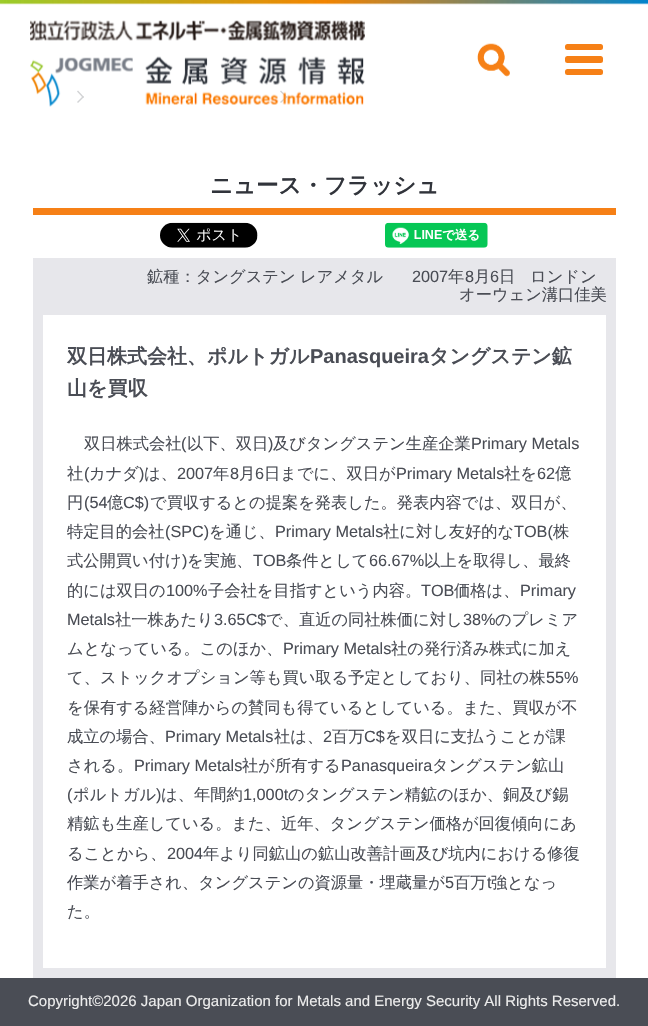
static SkFont makeFont(const char* family, int weight, float size, bool italic = false) {
  SkFontStyle style(weight, SkFontStyle::kNormal_Width,
    italic ? SkFontStyle::kItalic_Slant : SkFontStyle::kUpright_Slant);
  SkFont result(fontMgr->matchFamilyStyle(family, style), size);
  result.setSubpixel(true);
  return result;
}

static void text(SkCanvas* c, const char* s, float x, float y, const SkFont& font, SkColor color) {
  SkPaint ink(SkColor4f::FromColor(color));
  ink.setAntiAlias(true);
  c->drawString(s, x, y, font, ink);
}

static void box(SkCanvas* c, float l, float t, float r, float b, SkColor color) {
  SkPaint ink(SkColor4f::FromColor(color));
  ink.setAntiAlias(true);
  c->drawRect(SkRect::MakeLTRB(l, t, r, b), ink);
}

static void roundBox(SkCanvas* c, float l, float t, float r, float b, float radius, SkColor color) {
  SkPaint ink(SkColor4f::FromColor(color));
  ink.setAntiAlias(true);
  c->drawRoundRect(SkRect::MakeLTRB(l, t, r, b), radius, radius, ink);
}

static void picture(SkCanvas* c, const char* path, float l, float t, float r, float b) {
  auto image = SkImages::DeferredFromEncodedData(SkData::MakeFromFileName(path));
  c->drawImageRect(image, SkRect::MakeLTRB(l, t, r, b), SkSamplingOptions());
}

void draw(SkCanvas* c) {
  SkPaint paint;
  paint.setAntiAlias(true);
  c->clear(0xffffffff);
  paint.setColor(0xff4a4d55);
  c->drawPath(SkPathBuilder().moveTo(78, 90.5f).lineTo(84, 97).lineTo(83, 98).lineTo(77, 91.5f).close().detach(), paint);
  c->drawPath(SkPathBuilder().moveTo(83, 96).lineTo(84, 97).lineTo(78, 103).lineTo(77, 102).close().detach(), paint);
  c->drawPath(SkPathBuilder().moveTo(281, 90.5f).lineTo(287.5f, 97).lineTo(286.5f, 98).lineTo(280, 91.5f).close().detach(), paint);
  c->drawPath(SkPathBuilder().moveTo(286.5f, 96).lineTo(287.5f, 97).lineTo(281, 103).lineTo(280, 102).close().detach(), paint);
  box(c, 77, 90, 288, 103, 0xbfffffff);
  picture(c, "img_01.png", 0, 0, 648, 5);
  picture(c, "img_02.png", 30, 20, 365, 107);
  picture(c, "img_03.png", 477, 43, 510, 77);
  roundBox(c, 565, 56, 603, 63, 2.5f, 0xfff68016);
  roundBox(c, 565, 44, 603, 50, 2.5f, 0xfff68016);
  roundBox(c, 565, 69, 603, 75, 2.5f, 0xfff68016);
  SkFont face1 = makeFont("WenQuanYi Zen Hei", 700, 22.5f);
  text(c, "ニュース・フラッシュ", 210, 193, face1, 0xff31343b);
  box(c, 33, 208, 616, 215, 0xfff68016);
  picture(c, "img_04.png", 160, 222, 258, 248);
  picture(c, "img_05.png", 385, 222, 488, 248);
  box(c, 33, 258, 616, 978, 0xffe7e7eb);
  SkFont face2 = makeFont("WenQuanYi Zen Hei", 500, 16.25f);
  text(c, "鉱種：タングステン", 147, 282, face2, 0xff4a4d55);
  text(c, "レアメタル", 300, 282, face2, 0xff4a4d55);
  SkFont face3 = makeFont("Liberation Sans", 400, 16.25f);
  text(c, "2007", 412, 282, face3, 0xff4a4d55);
  text(c, "年", 448, 282, face2, 0xff4a4d55);
  text(c, "8", 465, 282, face3, 0xff4a4d55);
  text(c, "月", 474, 282, face2, 0xff4a4d55);
  text(c, "6", 490, 282, face3, 0xff4a4d55);
  text(c, "日", 499, 282, face2, 0xff4a4d55);
  text(c, "ロンドン", 530, 282, face2, 0xff4a4d55);
  text(c, "オーウェン溝口佳美", 459, 300, face2, 0xff4a4d55);
  box(c, 43, 315, 606, 968, 0xffffffff);
  SkFont face4 = makeFont("WenQuanYi Zen Hei", 700, 20);
  text(c, "双日株式会社、ポルトガル", 67, 363, face4, 0xff4a4d55);
  SkFont face5 = makeFont("Liberation Sans", 700, 20);
  text(c, "Panasqueira", 310, 363, face5, 0xff4a4d55);
  text(c, "タングステン鉱", 429, 363, face4, 0xff4a4d55);
  text(c, "山を買収", 67, 395, face4, 0xff4a4d55);
  text(c, "双日株式会社", 84, 449, face2, 0xff4a4d55);
  text(c, "(", 181, 449, face3, 0xff4a4d55);
  text(c, "以下、双日", 187, 449, face2, 0xff4a4d55);
  text(c, ")", 268, 449, face3, 0xff4a4d55);
  text(c, "及びタングステン生産企業", 273, 449, face2, 0xff4a4d55);
  text(c, "Primary Metals", 471, 449, face3, 0xff4a4d55);
  text(c, "社", 67, 479, face2, 0xff4a4d55);
  text(c, "(", 84, 479, face3, 0xff4a4d55);
  text(c, "カナダ", 89, 479, face2, 0xff4a4d55);
  text(c, ")", 139, 479, face3, 0xff4a4d55);
  text(c, "は、", 144, 479, face2, 0xff4a4d55);
  text(c, "2007", 177, 479, face3, 0xff4a4d55);
  text(c, "年", 213, 479, face2, 0xff4a4d55);
  text(c, "8", 230, 479, face3, 0xff4a4d55);
  text(c, "月", 239, 479, face2, 0xff4a4d55);
  text(c, "6", 255, 479, face3, 0xff4a4d55);
  text(c, "日までに、双日が", 264, 479, face2, 0xff4a4d55);
  text(c, "Primary Metals", 396, 479, face3, 0xff4a4d55);
  text(c, "社を", 504, 479, face2, 0xff4a4d55);
  text(c, "62", 537, 479, face3, 0xff4a4d55);
  text(c, "億", 555, 479, face2, 0xff4a4d55);
  text(c, "円", 67, 508, face2, 0xff4a4d55);
  text(c, "(54", 84, 508, face3, 0xff4a4d55);
  text(c, "億", 107, 508, face2, 0xff4a4d55);
  text(c, "C$)", 123, 508, face3, 0xff4a4d55);
  text(c, "で買収するとの提案を発表した。発表内容では、双日が、", 150, 508, face2, 0xff4a4d55);
  text(c, "特定目的会社", 67, 537, face2, 0xff4a4d55);
  text(c, "(SPC)", 165, 537, face3, 0xff4a4d55);
  text(c, "を通じ、", 209, 537, face2, 0xff4a4d55);
  text(c, "Primary Metals", 275, 537, face3, 0xff4a4d55);
  text(c, "社に対し友好的な", 383, 537, face2, 0xff4a4d55);
  text(c, "TOB(", 514, 537, face3, 0xff4a4d55);
  text(c, "株", 553, 537, face2, 0xff4a4d55);
  text(c, "式公開買い付け", 67, 566, face2, 0xff4a4d55);
  text(c, ")", 182, 566, face3, 0xff4a4d55);
  text(c, "を実施、", 187, 566, face2, 0xff4a4d55);
  text(c, "TOB", 253, 566, face3, 0xff4a4d55);
  text(c, "条件として", 286, 566, face2, 0xff4a4d55);
  text(c, "66.67%", 369, 566, face3, 0xff4a4d55);
  text(c, "以上を取得し、最終", 424, 566, face2, 0xff4a4d55);
  text(c, "的には双日の", 67, 596, face2, 0xff4a4d55);
  text(c, "100%", 166, 596, face3, 0xff4a4d55);
  text(c, "子会社を目指すという内容。", 208, 596, face2, 0xff4a4d55);
  text(c, "TOB", 421, 596, face3, 0xff4a4d55);
  text(c, "価格は、", 454, 596, face2, 0xff4a4d55);
  text(c, "Primary", 520, 596, face3, 0xff4a4d55);
  text(c, "Metals", 67, 625, face3, 0xff4a4d55);
  text(c, "社一株あたり", 115, 625, face2, 0xff4a4d55);
  text(c, "3.65C$", 214, 625, face3, 0xff4a4d55);
  text(c, "で、直近の同社株価に対し", 266, 625, face2, 0xff4a4d55);
  text(c, "38%", 463, 625, face3, 0xff4a4d55);
  text(c, "のプレミア", 495, 625, face2, 0xff4a4d55);
  text(c, "ムとなっている。このほか、", 67, 654, face2, 0xff4a4d55);
  text(c, "Primary Metals", 283, 654, face3, 0xff4a4d55);
  text(c, "社の発行済み株式に加え", 391, 654, face2, 0xff4a4d55);
  text(c, "て、ストックオプション等も買い取る予定としており、同社の株", 67, 683, face2, 0xff4a4d55);
  text(c, "55%", 546, 683, face3, 0xff4a4d55);
  text(c, "を保有する経営陣からの賛同も得ているとしている。また、買収が不", 67, 713, face2, 0xff4a4d55);
  text(c, "成立の場合、", 67, 742, face2, 0xff4a4d55);
  text(c, "Primary Metals", 165, 742, face3, 0xff4a4d55);
  text(c, "社は、", 274, 742, face2, 0xff4a4d55);
  text(c, "2", 323, 742, face3, 0xff4a4d55);
  text(c, "百万", 332, 742, face2, 0xff4a4d55);
  text(c, "C$", 364, 742, face3, 0xff4a4d55);
  text(c, "を双日に支払うことが課", 385, 742, face2, 0xff4a4d55);
  text(c, "される。", 67, 771, face2, 0xff4a4d55);
  text(c, "Primary Metals", 134, 771, face3, 0xff4a4d55);
  text(c, "社が所有する", 242, 771, face2, 0xff4a4d55);
  text(c, "Panasqueira", 341, 771, face3, 0xff4a4d55);
  text(c, "タングステン鉱山", 432, 771, face2, 0xff4a4d55);
  text(c, "(", 67, 800, face3, 0xff4a4d55);
  text(c, "ポルトガル", 73, 800, face2, 0xff4a4d55);
  text(c, ")", 156, 800, face3, 0xff4a4d55);
  text(c, "は、年間約", 161, 800, face2, 0xff4a4d55);
  text(c, "1,000t", 243, 800, face3, 0xff4a4d55);
  text(c, "のタングステン精鉱のほか、銅及び錫", 288, 800, face2, 0xff4a4d55);
  text(c, "精鉱も生産している。また、近年、タングステン価格が回復傾向にあ", 67, 829, face2, 0xff4a4d55);
  text(c, "ることから、", 67, 859, face2, 0xff4a4d55);
  text(c, "2004", 167, 859, face3, 0xff4a4d55);
  text(c, "年より同鉱山の鉱山改善計画及び坑内における修復", 203, 859, face2, 0xff4a4d55);
  text(c, "作業が着手され、タングステンの資源量・埋蔵量が", 67, 888, face2, 0xff4a4d55);
  text(c, "5", 445, 888, face3, 0xff4a4d55);
  text(c, "百万", 454, 888, face2, 0xff4a4d55);
  text(c, "t", 487, 888, face3, 0xff4a4d55);
  text(c, "強となっ", 491, 888, face2, 0xff4a4d55);
  text(c, "た。", 67, 917, face2, 0xff4a4d55);
  box(c, 0, 978, 648, 1026, 0xff4a4d55);
  SkFont face6 = makeFont("Liberation Sans", 400, 15);
  text(c, "Copyright©2026 Japan Organization for Metals and Energy Security All Rights Reserved.", 28, 1006, face6, 0xffececec);
}
